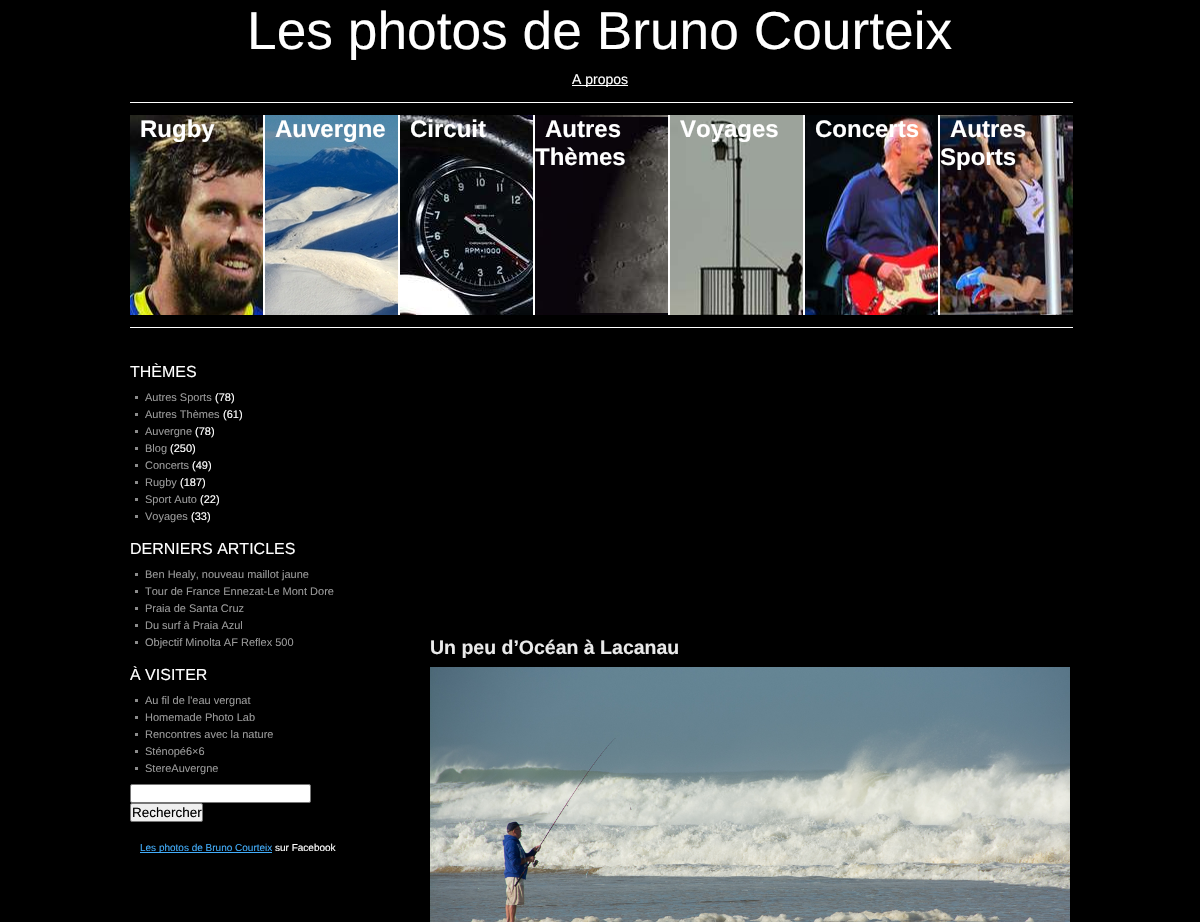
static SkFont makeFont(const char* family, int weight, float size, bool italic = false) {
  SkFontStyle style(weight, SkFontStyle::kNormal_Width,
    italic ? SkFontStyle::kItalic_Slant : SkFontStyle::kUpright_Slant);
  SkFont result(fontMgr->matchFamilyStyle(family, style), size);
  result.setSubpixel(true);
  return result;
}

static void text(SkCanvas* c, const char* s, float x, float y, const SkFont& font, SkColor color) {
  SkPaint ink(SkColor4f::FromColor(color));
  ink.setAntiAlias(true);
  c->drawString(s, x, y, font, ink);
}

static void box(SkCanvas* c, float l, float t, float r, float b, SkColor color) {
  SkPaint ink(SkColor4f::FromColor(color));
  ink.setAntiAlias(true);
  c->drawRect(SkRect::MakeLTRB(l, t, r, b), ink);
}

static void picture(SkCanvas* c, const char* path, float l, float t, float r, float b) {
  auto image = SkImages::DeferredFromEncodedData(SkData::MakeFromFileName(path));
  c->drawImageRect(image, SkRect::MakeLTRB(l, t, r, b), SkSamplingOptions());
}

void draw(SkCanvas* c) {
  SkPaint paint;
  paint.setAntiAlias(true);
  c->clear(0xff000000);
  SkFont face1 = makeFont("Liberation Sans", 400, 53.3f);
  text(c, "Les photos de Bruno Courteix", 247, 49, face1, 0xffffffff);
  box(c, 572, 85, 628, 86, 0xffffffff);
  SkFont face2 = makeFont("Liberation Sans", 400, 14);
  text(c, "A propos", 572, 84, face2, 0xffffffff);
  box(c, 130, 102, 1073, 103, 0xffffffff);
  box(c, 130, 327, 1073, 328, 0xffffffff);
  picture(c, "img_01.png", 130, 115, 263, 315);
  box(c, 263, 115, 265, 315, 0xffffffff);
  SkFont face3 = makeFont("Liberation Sans", 700, 24);
  text(c, "Rugby", 140, 137, face3, 0xffffffff);
  picture(c, "img_02.png", 265, 115, 398, 315);
  box(c, 398, 115, 400, 315, 0xffffffff);
  text(c, "Auvergne", 275, 137, face3, 0xffffffff);
  picture(c, "img_03.png", 400, 115, 533, 315);
  box(c, 533, 115, 535, 315, 0xffffffff);
  text(c, "Circuit", 410, 137, face3, 0xffffffff);
  picture(c, "img_04.png", 535, 115, 668, 315);
  box(c, 668, 115, 670, 315, 0xffffffff);
  text(c, "Autres", 545, 137, face3, 0xffffffff);
  text(c, "Thèmes", 535, 165, face3, 0xffffffff);
  picture(c, "img_05.png", 670, 115, 803, 315);
  box(c, 803, 115, 805, 315, 0xffffffff);
  text(c, "Voyages", 680, 137, face3, 0xffffffff);
  picture(c, "img_06.png", 805, 115, 938, 315);
  box(c, 938, 115, 940, 315, 0xffffffff);
  text(c, "Concerts", 815, 137, face3, 0xffffffff);
  picture(c, "img_07.png", 940, 115, 1073, 315);
  text(c, "Autres", 950, 137, face3, 0xffffffff);
  text(c, "Sports", 940, 165, face3, 0xffffffff);
  SkFont face4 = makeFont("Liberation Sans", 400, 16);
  text(c, "THÈMES", 130, 377, face4, 0xffffffff);
  box(c, 135, 396, 138, 399, 0xff8c8c8c);
  SkFont face5 = makeFont("Liberation Sans", 400, 11);
  text(c, "Autres Sports", 145, 401, face5, 0xff999999);
  text(c, "(78)", 215, 401, face5, 0xffffffff);
  box(c, 135, 413, 138, 416, 0xff8c8c8c);
  text(c, "Autres Thèmes", 145, 418, face5, 0xff999999);
  text(c, "(61)", 223, 418, face5, 0xffffffff);
  box(c, 135, 430, 138, 433, 0xff8c8c8c);
  text(c, "Auvergne", 145, 435, face5, 0xff999999);
  text(c, "(78)", 195, 435, face5, 0xffffffff);
  box(c, 135, 447, 138, 450, 0xff8c8c8c);
  text(c, "Blog", 145, 452, face5, 0xff999999);
  text(c, "(250)", 170, 452, face5, 0xffffffff);
  box(c, 135, 464, 138, 467, 0xff8c8c8c);
  text(c, "Concerts", 145, 469, face5, 0xff999999);
  text(c, "(49)", 192, 469, face5, 0xffffffff);
  box(c, 135, 481, 138, 484, 0xff8c8c8c);
  text(c, "Rugby", 145, 486, face5, 0xff999999);
  text(c, "(187)", 180, 486, face5, 0xffffffff);
  box(c, 135, 498, 138, 501, 0xff8c8c8c);
  text(c, "Sport Auto", 145, 503, face5, 0xff999999);
  text(c, "(22)", 200, 503, face5, 0xffffffff);
  box(c, 135, 515, 138, 518, 0xff8c8c8c);
  text(c, "Voyages", 145, 520, face5, 0xff999999);
  text(c, "(33)", 191, 520, face5, 0xffffffff);
  text(c, "DERNIERS ARTICLES", 130, 554, face4, 0xffffffff);
  box(c, 135, 573, 138, 576, 0xff8c8c8c);
  text(c, "Ben Healy, nouveau maillot jaune", 145, 578, face5, 0xff999999);
  box(c, 135, 590, 138, 593, 0xff8c8c8c);
  text(c, "Tour de France Ennezat-Le Mont Dore", 145, 595, face5, 0xff999999);
  box(c, 135, 607, 138, 610, 0xff8c8c8c);
  text(c, "Praia de Santa Cruz", 145, 612, face5, 0xff999999);
  box(c, 135, 624, 138, 627, 0xff8c8c8c);
  text(c, "Du surf à Praia Azul", 145, 629, face5, 0xff999999);
  box(c, 135, 641, 138, 644, 0xff8c8c8c);
  text(c, "Objectif Minolta AF Reflex 500", 145, 646, face5, 0xff999999);
  text(c, "À VISITER", 130, 680, face4, 0xffffffff);
  box(c, 135, 699, 138, 702, 0xff8c8c8c);
  text(c, "Au fil de l'eau vergnat", 145, 704, face5, 0xff999999);
  box(c, 135, 716, 138, 719, 0xff8c8c8c);
  text(c, "Homemade Photo Lab", 145, 721, face5, 0xff999999);
  box(c, 135, 733, 138, 736, 0xff8c8c8c);
  text(c, "Rencontres avec la nature", 145, 738, face5, 0xff999999);
  box(c, 135, 750, 138, 753, 0xff8c8c8c);
  text(c, "Sténopé6×6", 145, 755, face5, 0xff999999);
  box(c, 135, 767, 138, 770, 0xff8c8c8c);
  text(c, "StereAuvergne", 145, 772, face5, 0xff999999);
  paint.setColor(0xffffffff);
  c->drawRoundRect(SkRect::MakeLTRB(130.5f, 784.5f, 310.5f, 802.5f), 1.5f, 1.5f, paint);
  paint.setStyle(SkPaint::kStroke_Style);
  paint.setStrokeWidth(1);
  paint.setColor(0xff767676);
  c->drawRoundRect(SkRect::MakeLTRB(130.5f, 784.5f, 310.5f, 802.5f), 1.5f, 1.5f, paint);
  paint.setStyle(SkPaint::kFill_Style);
  paint.setColor(0xffefefef);
  c->drawRoundRect(SkRect::MakeLTRB(130.5f, 803.5f, 202.5f, 821.5f), 1.5f, 1.5f, paint);
  paint.setStyle(SkPaint::kStroke_Style);
  paint.setColor(0xff767676);
  c->drawRoundRect(SkRect::MakeLTRB(130.5f, 803.5f, 202.5f, 821.5f), 1.5f, 1.5f, paint);
  SkFont face6 = makeFont("Liberation Sans", 400, 13.5f);
  text(c, "Rechercher", 132, 817, face6, 0xff000000);
  box(c, 140, 852, 272, 853, 0xff42adfb);
  SkFont face7 = makeFont("Liberation Sans", 400, 10);
  text(c, "Les photos de Bruno Courteix", 140, 851, face7, 0xff42adfb);
  text(c, "sur Facebook", 275, 851, face7, 0xffffffff);
  SkFont face8 = makeFont("Liberation Sans", 700, 19.5f);
  text(c, "Un peu d’Océan à Lacanau", 430, 654, face8, 0xffeaeaea);
  picture(c, "img_08.png", 430, 667, 1070, 922);
}
